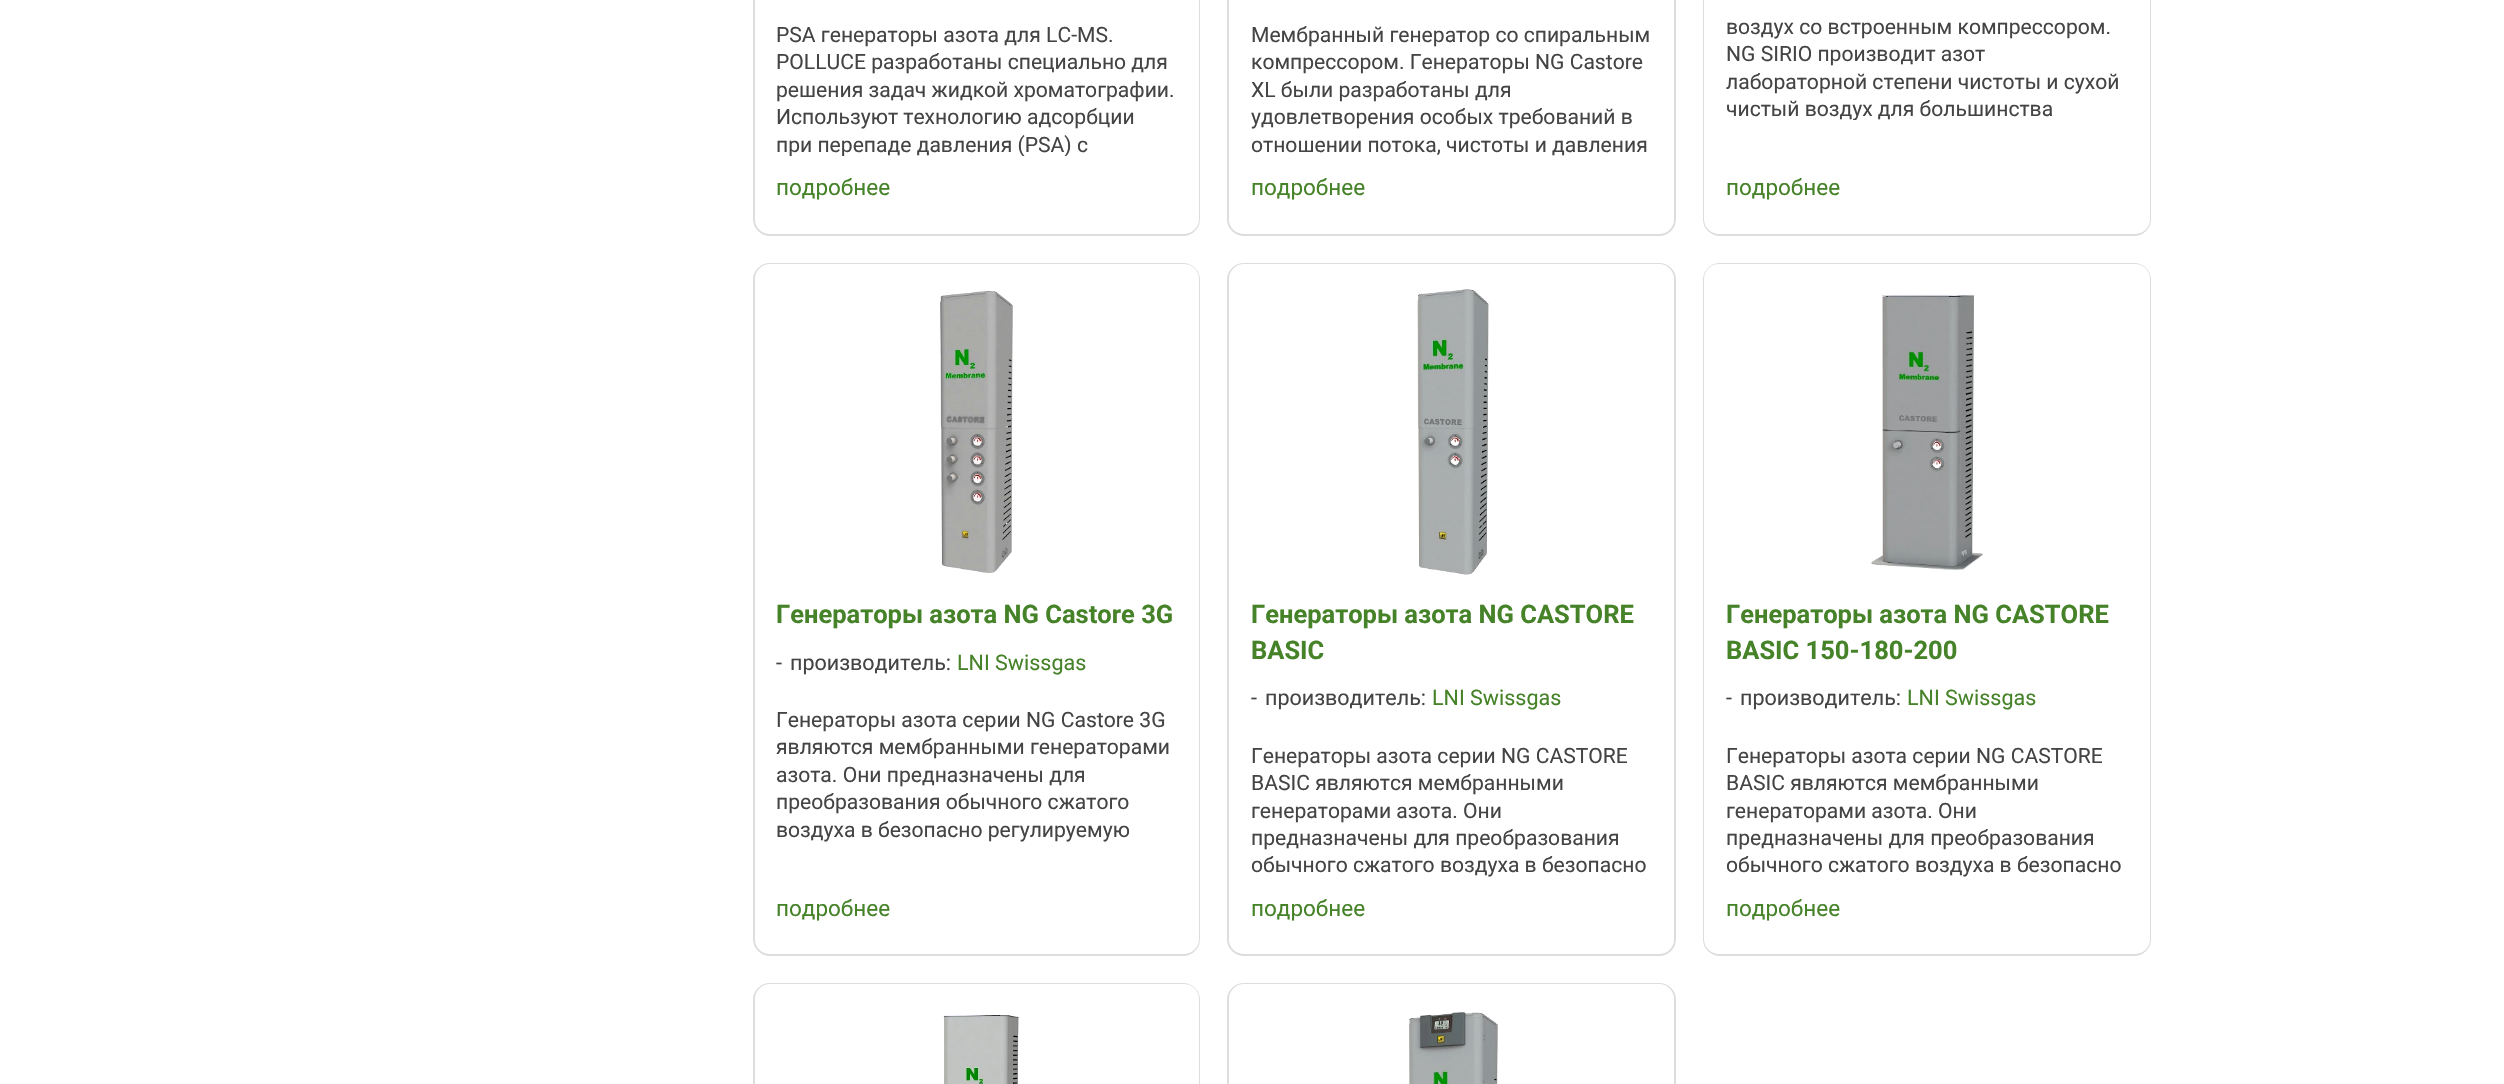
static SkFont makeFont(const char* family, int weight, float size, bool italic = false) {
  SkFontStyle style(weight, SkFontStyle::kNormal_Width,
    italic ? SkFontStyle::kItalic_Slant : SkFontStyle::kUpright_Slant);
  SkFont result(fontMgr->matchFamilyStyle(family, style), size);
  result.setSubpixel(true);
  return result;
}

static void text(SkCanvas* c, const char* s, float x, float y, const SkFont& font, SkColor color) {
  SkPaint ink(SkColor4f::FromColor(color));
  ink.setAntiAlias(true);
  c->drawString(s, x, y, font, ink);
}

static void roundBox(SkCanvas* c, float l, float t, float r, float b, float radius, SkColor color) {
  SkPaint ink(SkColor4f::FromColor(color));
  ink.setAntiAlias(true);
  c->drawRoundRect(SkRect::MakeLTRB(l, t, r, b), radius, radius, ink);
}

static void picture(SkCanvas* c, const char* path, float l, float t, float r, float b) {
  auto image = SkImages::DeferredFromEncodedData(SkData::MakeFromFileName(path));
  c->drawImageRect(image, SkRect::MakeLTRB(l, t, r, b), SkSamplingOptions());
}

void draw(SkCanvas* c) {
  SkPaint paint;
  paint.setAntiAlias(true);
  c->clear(0xffffffff);
  paint.setStyle(SkPaint::kStroke_Style);
  paint.setStrokeWidth(2);
  paint.setColor(0xffdddddd);
  c->drawRoundRect(SkRect::MakeLTRB(754, -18, 1199, 235), 16, 16, paint);
  roundBox(c, 755, -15, 1199, 234, 15, 0xffffffff);
  SkFont face1 = makeFont("Roboto", 400, 21.1f);
  text(c, "PSA генераторы азота для LC-MS.", 776, 42, face1, 0xff444444);
  text(c, "POLLUCE разработаны специально для", 776, 69, face1, 0xff444444);
  text(c, "решения задач жидкой хроматографии.", 776, 97, face1, 0xff444444);
  text(c, "Используют технологию адсорбции", 776, 124, face1, 0xff444444);
  c->save();
  c->clipRect(SkRect::MakeLTRB(777, 21, 1176, 156));
  text(c, "при перепаде давления (PSA) с", 776, 152, face1, 0xff444444);
  c->restore();
  SkFont face2 = makeFont("Roboto", 400, 22.5f);
  text(c, "подробнее", 776, 195, face2, 0xff458228);
  c->drawRoundRect(SkRect::MakeLTRB(1228, -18, 1675, 235), 16, 16, paint);
  roundBox(c, 1229, -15, 1674, 234, 15, 0xffffffff);
  text(c, "Мембранный генератор со спиральным", 1251, 42, face1, 0xff444444);
  text(c, "компрессором. Генераторы NG Castore", 1251, 69, face1, 0xff444444);
  text(c, "XL были разработаны для", 1251, 97, face1, 0xff444444);
  text(c, "удовлетворения особых требований в", 1251, 124, face1, 0xff444444);
  text(c, "отношении потока, чистоты и давления", 1251, 152, face1, 0xff444444);
  text(c, "подробнее", 1251, 195, face2, 0xff458228);
  c->drawRoundRect(SkRect::MakeLTRB(1704, -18, 2150, 235), 16, 16, paint);
  roundBox(c, 1704, -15, 2150, 234, 15, 0xffffffff);
  text(c, "воздух со встроенным компрессором.", 1726, 34, face1, 0xff444444);
  text(c, "NG SIRIO производит азот", 1726, 61, face1, 0xff444444);
  text(c, "лабораторной степени чистоты и сухой", 1726, 89, face1, 0xff444444);
  c->save();
  c->clipRect(SkRect::MakeLTRB(1727, 0, 2127, 120));
  text(c, "чистый воздух для большинства", 1726, 116, face1, 0xff444444);
  c->restore();
  text(c, "подробнее", 1726, 195, face2, 0xff458228);
  c->drawRoundRect(SkRect::MakeLTRB(754, 264, 1199, 955), 16, 16, paint);
  roundBox(c, 755, 264, 1199, 954, 15, 0xffffffff);
  picture(c, "img_01.png", 940, 290, 1013, 573);
  SkFont face3 = makeFont("Roboto", 700, 25.5f);
  text(c, "Генераторы азота NG Castore 3G", 776, 623, face3, 0xff458228);
  SkFont face4 = makeFont("Roboto", 400, 21.5f);
  text(c, "-", 776, 670, face4, 0xff444444);
  text(c, "производитель:", 790, 670, face4, 0xff444444);
  text(c, "LNI Swissgas", 957, 670, face4, 0xff458228);
  text(c, "Генераторы азота серии NG Castore 3G", 776, 727, face1, 0xff444444);
  text(c, "являются мембранными генераторами", 776, 754, face1, 0xff444444);
  text(c, "азота. Они предназначены для", 776, 782, face1, 0xff444444);
  text(c, "преобразования обычного сжатого", 776, 809, face1, 0xff444444);
  text(c, "воздуха в безопасно регулируемую", 776, 837, face1, 0xff444444);
  text(c, "подробнее", 776, 916, face2, 0xff458228);
  c->drawRoundRect(SkRect::MakeLTRB(1228, 264, 1675, 955), 16, 16, paint);
  roundBox(c, 1229, 264, 1674, 954, 15, 0xffffffff);
  picture(c, "img_02.png", 1417, 289, 1489, 575);
  text(c, "Генераторы азота NG CASTORE", 1251, 623, face3, 0xff458228);
  text(c, "BASIC", 1251, 659, face3, 0xff458228);
  text(c, "-", 1251, 705, face4, 0xff444444);
  text(c, "производитель:", 1265, 705, face4, 0xff444444);
  text(c, "LNI Swissgas", 1432, 705, face4, 0xff458228);
  text(c, "Генераторы азота серии NG CASTORE", 1251, 763, face1, 0xff444444);
  text(c, "BASIC являются мембранными", 1251, 790, face1, 0xff444444);
  text(c, "генераторами азота. Они", 1251, 818, face1, 0xff444444);
  text(c, "предназначены для преобразования", 1251, 845, face1, 0xff444444);
  text(c, "обычного сжатого воздуха в безопасно", 1251, 872, face1, 0xff444444);
  text(c, "подробнее", 1251, 916, face2, 0xff458228);
  c->drawRoundRect(SkRect::MakeLTRB(1704, 264, 2150, 955), 16, 16, paint);
  roundBox(c, 1704, 264, 2150, 954, 15, 0xffffffff);
  picture(c, "img_03.png", 1871, 294, 1983, 570);
  text(c, "Генераторы азота NG CASTORE", 1726, 623, face3, 0xff458228);
  text(c, "BASIC 150-180-200", 1726, 659, face3, 0xff458228);
  text(c, "-", 1726, 705, face4, 0xff444444);
  text(c, "производитель:", 1740, 705, face4, 0xff444444);
  text(c, "LNI Swissgas", 1907, 705, face4, 0xff458228);
  text(c, "Генераторы азота серии NG CASTORE", 1726, 763, face1, 0xff444444);
  text(c, "BASIC являются мембранными", 1726, 790, face1, 0xff444444);
  text(c, "генераторами азота. Они", 1726, 818, face1, 0xff444444);
  text(c, "предназначены для преобразования", 1726, 845, face1, 0xff444444);
  text(c, "обычного сжатого воздуха в безопасно", 1726, 872, face1, 0xff444444);
  text(c, "подробнее", 1726, 916, face2, 0xff458228);
  c->drawRoundRect(SkRect::MakeLTRB(754, 984, 1199, 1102), 16, 16, paint);
  roundBox(c, 755, 984, 1199, 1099, 15, 0xffffffff);
  picture(c, "img_04.png", 943, 1015, 1019, 1084);
  c->drawRoundRect(SkRect::MakeLTRB(1228, 984, 1675, 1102), 16, 16, paint);
  roundBox(c, 1229, 984, 1674, 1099, 15, 0xffffffff);
  picture(c, "img_05.png", 1409, 1012, 1498, 1084);
}
